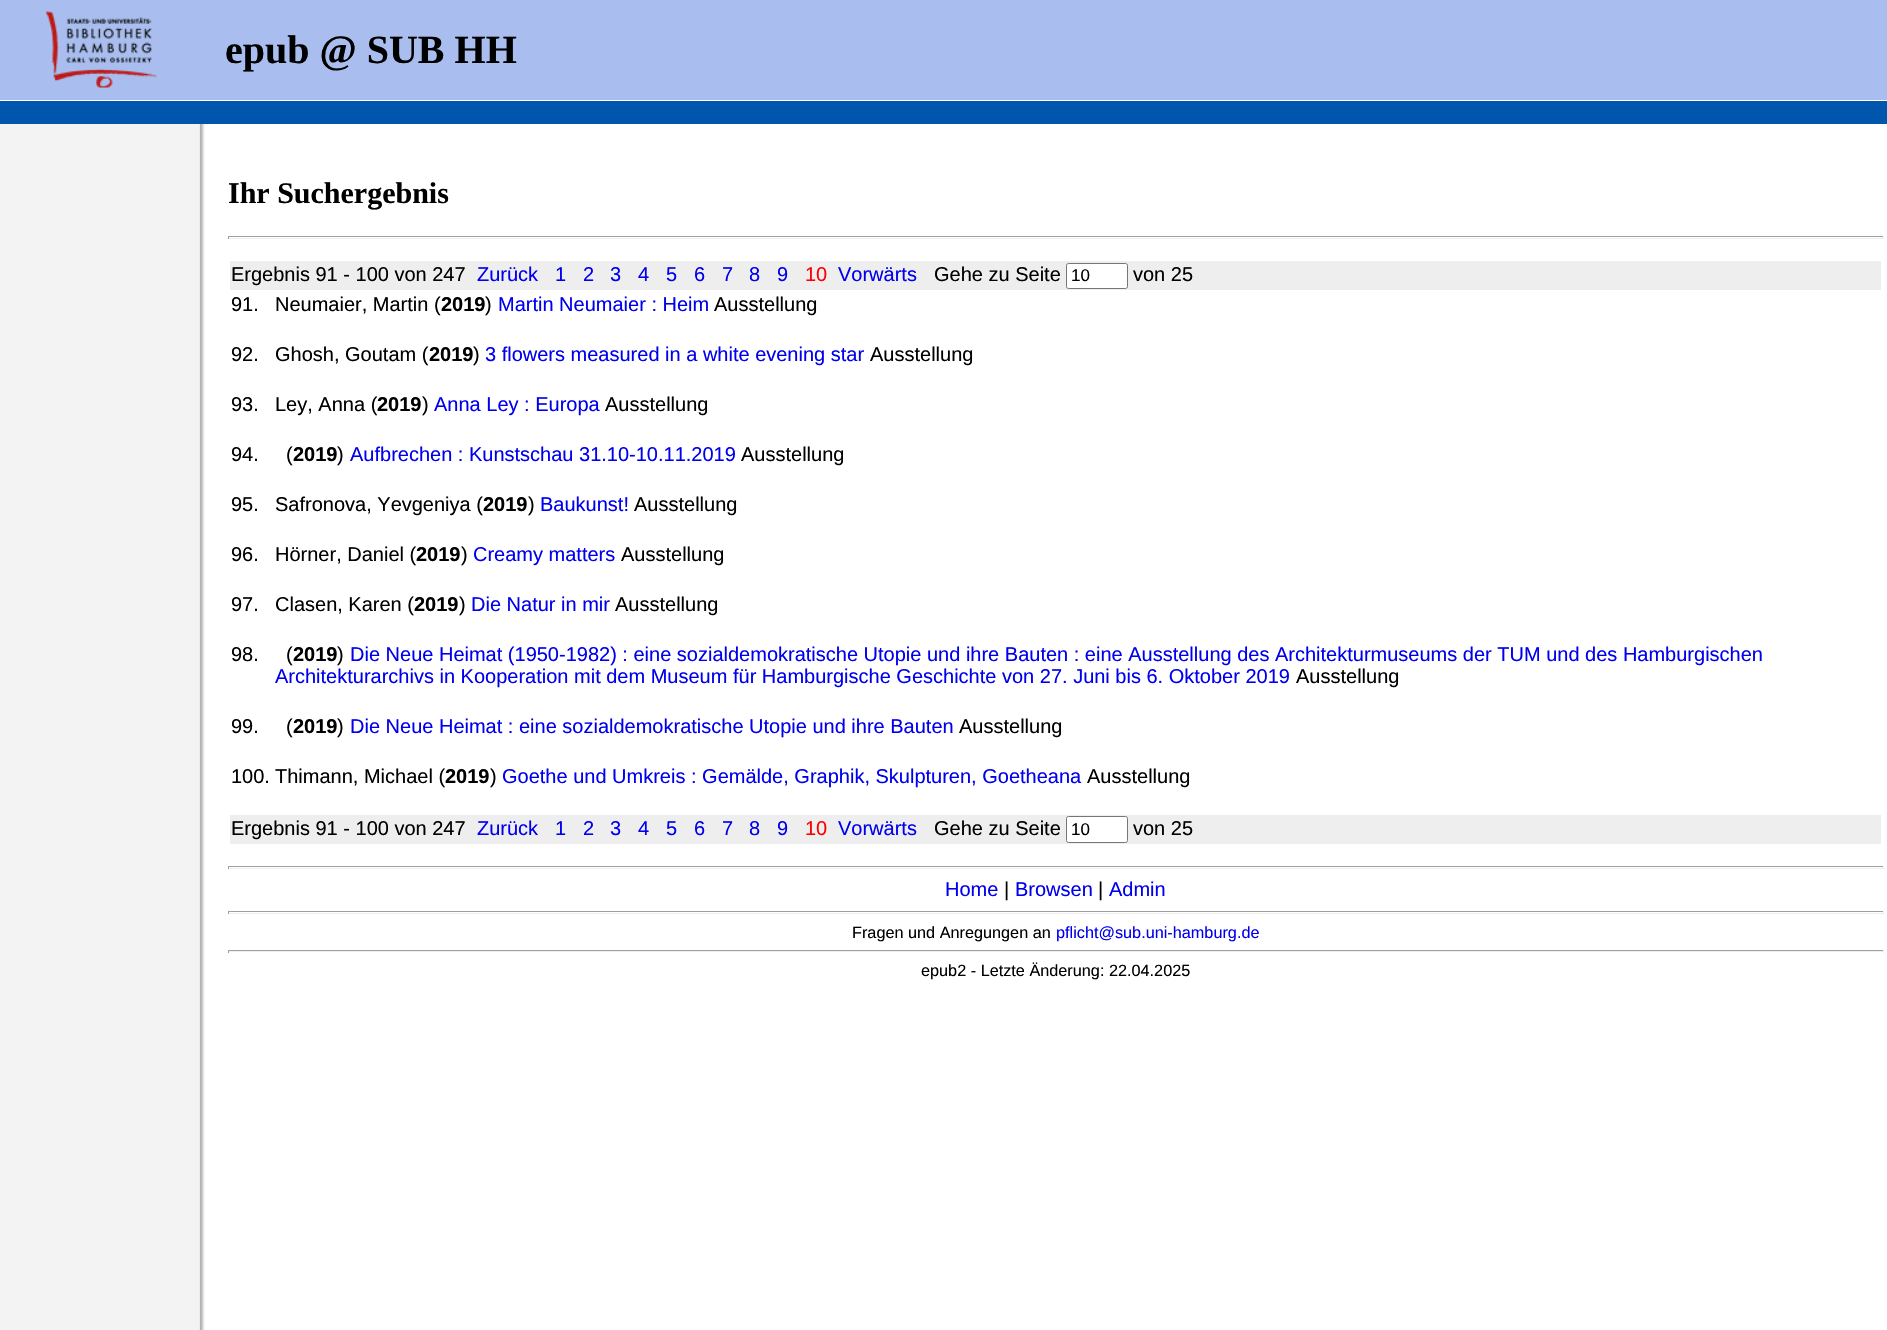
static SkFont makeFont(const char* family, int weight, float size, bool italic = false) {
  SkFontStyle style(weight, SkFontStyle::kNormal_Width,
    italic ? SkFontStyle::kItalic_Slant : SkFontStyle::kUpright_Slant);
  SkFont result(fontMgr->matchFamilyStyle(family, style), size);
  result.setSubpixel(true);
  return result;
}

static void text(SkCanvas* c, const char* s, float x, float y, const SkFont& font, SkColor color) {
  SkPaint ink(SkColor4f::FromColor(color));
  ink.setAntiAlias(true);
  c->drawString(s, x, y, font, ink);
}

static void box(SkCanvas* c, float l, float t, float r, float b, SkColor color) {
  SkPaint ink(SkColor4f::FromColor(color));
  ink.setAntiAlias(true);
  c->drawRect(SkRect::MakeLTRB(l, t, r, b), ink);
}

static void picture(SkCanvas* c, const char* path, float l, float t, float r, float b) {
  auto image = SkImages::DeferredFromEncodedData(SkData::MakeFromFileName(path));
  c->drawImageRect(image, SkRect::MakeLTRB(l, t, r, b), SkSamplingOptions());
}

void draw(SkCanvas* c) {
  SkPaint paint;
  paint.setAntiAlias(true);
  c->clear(0xffffffff);
  picture(c, "img_01.png", 0, 124, 205, 1330);
  box(c, 0, 0, 1887, 100, 0xffa9beee);
  picture(c, "img_02.png", 46, 11, 157, 88);
  SkFont face1 = makeFont("Liberation Serif", 700, 40);
  text(c, "epub @ SUB HH", 225, 63, face1, 0xff000000);
  box(c, 0, 101, 1887, 124, 0xff0056ac);
  SkFont face2 = makeFont("Liberation Serif", 700, 30);
  text(c, "Ihr Suchergebnis", 228, 203, face2, 0xff000000);
  box(c, 228, 236, 1884, 237, 0xff9f9f9f);
  box(c, 1883, 236, 1884, 239, 0xffeeeeee);
  box(c, 228, 238, 1884, 239, 0xffeeeeee);
  box(c, 228, 236, 229, 239, 0xff9f9f9f);
  box(c, 230, 261, 1881, 290, 0xffeeeeee);
  SkFont face3 = makeFont("Liberation Sans", 400, 20);
  text(c, "Ergebnis 91 - 100 von 247", 231, 281, face3, 0xff000000);
  text(c, "Zurück", 477, 281, face3, 0xff0000ee);
  text(c, "1", 555, 281, face3, 0xff0000ee);
  text(c, "2", 583, 281, face3, 0xff0000ee);
  text(c, "3", 610, 281, face3, 0xff0000ee);
  text(c, "4", 638, 281, face3, 0xff0000ee);
  text(c, "5", 666, 281, face3, 0xff0000ee);
  text(c, "6", 694, 281, face3, 0xff0000ee);
  text(c, "7", 722, 281, face3, 0xff0000ee);
  text(c, "8", 749, 281, face3, 0xff0000ee);
  text(c, "9", 777, 281, face3, 0xff0000ee);
  text(c, "10", 805, 281, face3, 0xffff0000);
  text(c, "Vorwärts", 838, 281, face3, 0xff0000ee);
  text(c, "Gehe zu Seite", 934, 281, face3, 0xff000000);
  paint.setColor(0xffffffff);
  c->drawRoundRect(SkRect::MakeLTRB(1066.5f, 263.5f, 1127.5f, 288.5f), 2, 2, paint);
  paint.setStyle(SkPaint::kStroke_Style);
  paint.setStrokeWidth(1);
  paint.setColor(0xff767676);
  c->drawRoundRect(SkRect::MakeLTRB(1066.5f, 263.5f, 1127.5f, 288.5f), 2, 2, paint);
  SkFont face4 = makeFont("Liberation Sans", 400, 17);
  text(c, "10", 1071, 281, face4, 0xff000000);
  text(c, "von 25", 1133, 281, face3, 0xff000000);
  text(c, "91.", 231, 311, face3, 0xff000000);
  text(c, "Neumaier, Martin (", 275, 311, face3, 0xff000000);
  SkFont face5 = makeFont("Liberation Sans", 700, 20);
  text(c, "2019", 441, 311, face5, 0xff000000);
  text(c, ")", 485, 311, face3, 0xff000000);
  text(c, "Martin Neumaier : Heim", 498, 311, face3, 0xff0000ee);
  text(c, "Ausstellung", 714, 311, face3, 0xff000000);
  text(c, "92.", 231, 361, face3, 0xff000000);
  text(c, "Ghosh, Goutam (", 275, 361, face3, 0xff000000);
  text(c, "2019", 429, 361, face5, 0xff000000);
  text(c, ")", 473, 361, face3, 0xff000000);
  text(c, "3 flowers measured in a white evening star", 485, 361, face3, 0xff0000ee);
  text(c, "Ausstellung", 870, 361, face3, 0xff000000);
  text(c, "93.", 231, 411, face3, 0xff000000);
  text(c, "Ley, Anna (", 275, 411, face3, 0xff000000);
  text(c, "2019", 377, 411, face5, 0xff000000);
  text(c, ")", 422, 411, face3, 0xff000000);
  text(c, "Anna Ley : Europa", 434, 411, face3, 0xff0000ee);
  text(c, "Ausstellung", 605, 411, face3, 0xff000000);
  text(c, "94.", 231, 461, face3, 0xff000000);
  text(c, "(", 286, 461, face3, 0xff000000);
  text(c, "2019", 293, 461, face5, 0xff000000);
  text(c, ")", 337, 461, face3, 0xff000000);
  text(c, "Aufbrechen : Kunstschau 31.10-10.11.2019", 350, 461, face3, 0xff0000ee);
  text(c, "Ausstellung", 741, 461, face3, 0xff000000);
  text(c, "95.", 231, 511, face3, 0xff000000);
  text(c, "Safronova, Yevgeniya (", 275, 511, face3, 0xff000000);
  text(c, "2019", 483, 511, face5, 0xff000000);
  text(c, ")", 528, 511, face3, 0xff000000);
  text(c, "Baukunst!", 540, 511, face3, 0xff0000ee);
  text(c, "Ausstellung", 634, 511, face3, 0xff000000);
  text(c, "96.", 231, 561, face3, 0xff000000);
  text(c, "Hörner, Daniel (", 275, 561, face3, 0xff000000);
  text(c, "2019", 416, 561, face5, 0xff000000);
  text(c, ")", 461, 561, face3, 0xff000000);
  text(c, "Creamy matters", 473, 561, face3, 0xff0000ee);
  text(c, "Ausstellung", 621, 561, face3, 0xff000000);
  text(c, "97.", 231, 611, face3, 0xff000000);
  text(c, "Clasen, Karen (", 275, 611, face3, 0xff000000);
  text(c, "2019", 414, 611, face5, 0xff000000);
  text(c, ")", 459, 611, face3, 0xff000000);
  text(c, "Die Natur in mir", 471, 611, face3, 0xff0000ee);
  text(c, "Ausstellung", 615, 611, face3, 0xff000000);
  text(c, "98.", 231, 661, face3, 0xff000000);
  text(c, "(", 286, 661, face3, 0xff000000);
  text(c, "2019", 293, 661, face5, 0xff000000);
  text(c, ")", 337, 661, face3, 0xff000000);
  text(c, "Die Neue Heimat (1950-1982) : eine sozialdemokratische Utopie und ihre Bauten : eine Ausstellung des Architekturmuseums der TUM und des Hamburgischen", 350, 661, face3, 0xff0000ee);
  text(c, "Architekturarchivs in Kooperation mit dem Museum für Hamburgische Geschichte von 27. Juni bis 6. Oktober 2019", 275, 683, face3, 0xff0000ee);
  text(c, "Ausstellung", 1296, 683, face3, 0xff000000);
  text(c, "99.", 231, 733, face3, 0xff000000);
  text(c, "(", 286, 733, face3, 0xff000000);
  text(c, "2019", 293, 733, face5, 0xff000000);
  text(c, ")", 337, 733, face3, 0xff000000);
  text(c, "Die Neue Heimat : eine sozialdemokratische Utopie und ihre Bauten", 350, 733, face3, 0xff0000ee);
  text(c, "Ausstellung", 959, 733, face3, 0xff000000);
  text(c, "100.", 231, 783, face3, 0xff000000);
  text(c, "Thimann, Michael (", 275, 783, face3, 0xff000000);
  text(c, "2019", 445, 783, face5, 0xff000000);
  text(c, ")", 490, 783, face3, 0xff000000);
  text(c, "Goethe und Umkreis : Gemälde, Graphik, Skulpturen, Goetheana", 502, 783, face3, 0xff0000ee);
  text(c, "Ausstellung", 1087, 783, face3, 0xff000000);
  box(c, 230, 815, 1881, 844, 0xffeeeeee);
  text(c, "Ergebnis 91 - 100 von 247", 231, 835, face3, 0xff000000);
  text(c, "Zurück", 477, 835, face3, 0xff0000ee);
  text(c, "1", 555, 835, face3, 0xff0000ee);
  text(c, "2", 583, 835, face3, 0xff0000ee);
  text(c, "3", 610, 835, face3, 0xff0000ee);
  text(c, "4", 638, 835, face3, 0xff0000ee);
  text(c, "5", 666, 835, face3, 0xff0000ee);
  text(c, "6", 694, 835, face3, 0xff0000ee);
  text(c, "7", 722, 835, face3, 0xff0000ee);
  text(c, "8", 749, 835, face3, 0xff0000ee);
  text(c, "9", 777, 835, face3, 0xff0000ee);
  text(c, "10", 805, 835, face3, 0xffff0000);
  text(c, "Vorwärts", 838, 835, face3, 0xff0000ee);
  text(c, "Gehe zu Seite", 934, 835, face3, 0xff000000);
  paint.setStyle(SkPaint::kFill_Style);
  paint.setColor(0xffffffff);
  c->drawRoundRect(SkRect::MakeLTRB(1066.5f, 816.5f, 1127.5f, 842.5f), 2, 2, paint);
  paint.setStyle(SkPaint::kStroke_Style);
  paint.setColor(0xff767676);
  c->drawRoundRect(SkRect::MakeLTRB(1066.5f, 816.5f, 1127.5f, 842.5f), 2, 2, paint);
  text(c, "10", 1071, 835, face4, 0xff000000);
  text(c, "von 25", 1133, 835, face3, 0xff000000);
  box(c, 228, 866, 1884, 867, 0xff9f9f9f);
  box(c, 1883, 866, 1884, 869, 0xffeeeeee);
  box(c, 228, 868, 1884, 869, 0xffeeeeee);
  box(c, 228, 866, 229, 869, 0xff9f9f9f);
  text(c, "Home", 945, 896, face3, 0xff0000ee);
  text(c, "|", 1004, 896, face3, 0xff000000);
  text(c, "Browsen", 1015, 896, face3, 0xff0000ee);
  text(c, "|", 1098, 896, face3, 0xff000000);
  text(c, "Admin", 1109, 896, face3, 0xff0000ee);
  box(c, 228, 911, 1884, 912, 0xff9f9f9f);
  box(c, 1883, 911, 1884, 914, 0xffeeeeee);
  box(c, 228, 913, 1884, 914, 0xffeeeeee);
  box(c, 228, 911, 229, 914, 0xff9f9f9f);
  SkFont face6 = makeFont("Liberation Sans", 400, 16.25f);
  text(c, "Fragen und Anregungen an", 852, 938, face6, 0xff000000);
  text(c, "pflicht@sub.uni-hamburg.de", 1056, 938, face6, 0xff0000ee);
  box(c, 228, 950, 1884, 951, 0xff9f9f9f);
  box(c, 1883, 950, 1884, 953, 0xffeeeeee);
  box(c, 228, 951, 1884, 952, 0xffeeeeee);
  box(c, 228, 950, 229, 953, 0xff9f9f9f);
  text(c, "epub2 - Letzte Änderung: 22.04.2025", 921, 976, face6, 0xff000000);
}
